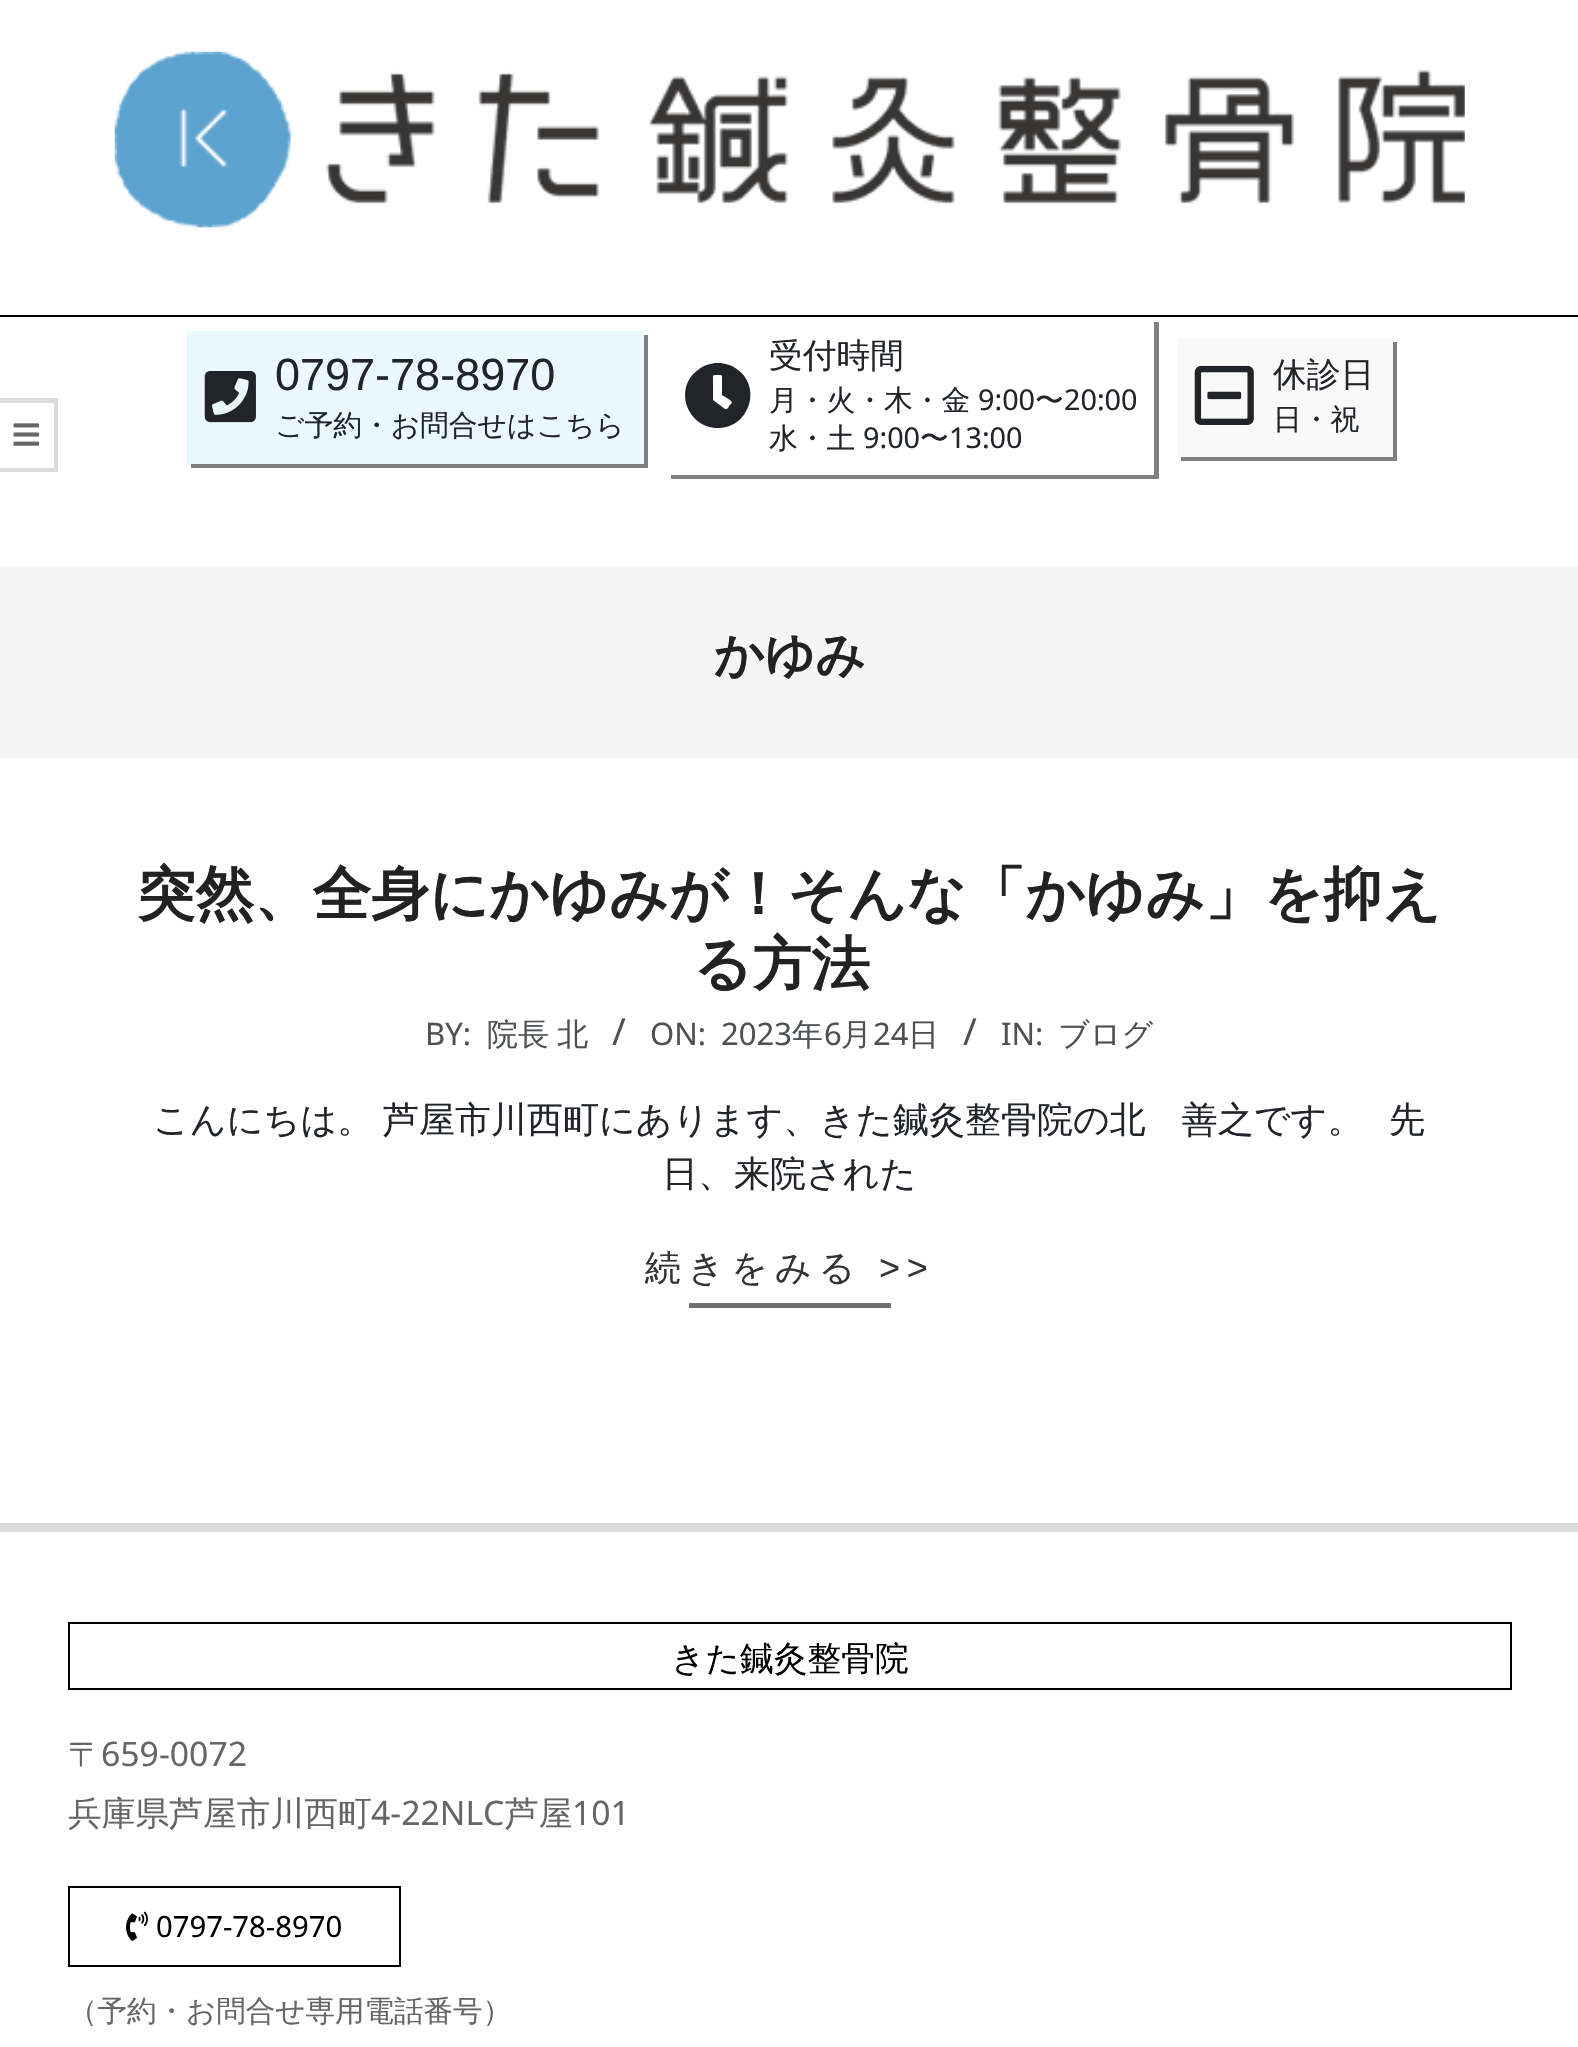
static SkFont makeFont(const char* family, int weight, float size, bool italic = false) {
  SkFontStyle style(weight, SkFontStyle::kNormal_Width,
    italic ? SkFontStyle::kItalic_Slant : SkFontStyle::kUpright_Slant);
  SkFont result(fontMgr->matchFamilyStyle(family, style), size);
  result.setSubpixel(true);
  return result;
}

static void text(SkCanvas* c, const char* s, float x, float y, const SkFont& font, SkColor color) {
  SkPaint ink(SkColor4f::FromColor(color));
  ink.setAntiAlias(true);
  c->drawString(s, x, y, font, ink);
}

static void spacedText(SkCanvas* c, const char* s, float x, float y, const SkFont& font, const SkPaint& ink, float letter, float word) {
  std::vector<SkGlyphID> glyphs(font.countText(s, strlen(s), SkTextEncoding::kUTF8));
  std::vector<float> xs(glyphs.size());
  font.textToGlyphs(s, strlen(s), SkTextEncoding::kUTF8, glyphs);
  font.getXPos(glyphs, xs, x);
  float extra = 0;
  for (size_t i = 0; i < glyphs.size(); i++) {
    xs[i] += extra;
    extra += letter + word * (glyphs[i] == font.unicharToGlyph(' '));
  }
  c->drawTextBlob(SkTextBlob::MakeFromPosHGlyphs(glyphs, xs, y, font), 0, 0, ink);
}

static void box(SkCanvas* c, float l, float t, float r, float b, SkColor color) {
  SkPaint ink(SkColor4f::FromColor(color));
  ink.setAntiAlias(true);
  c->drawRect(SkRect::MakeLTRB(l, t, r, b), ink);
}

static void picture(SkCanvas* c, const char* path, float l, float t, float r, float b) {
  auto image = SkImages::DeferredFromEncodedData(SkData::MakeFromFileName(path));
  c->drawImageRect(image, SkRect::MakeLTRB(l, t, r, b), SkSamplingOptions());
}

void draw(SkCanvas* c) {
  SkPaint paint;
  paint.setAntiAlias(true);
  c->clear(0xffffffff);
  picture(c, "img_01.png", 114, 51, 1465, 228);
  box(c, 0, 315, 1578, 317, 0xff000000);
  paint.setColor(0xffdbdbdb);
  c->drawPath(SkPathBuilder().moveTo(0, 398).lineTo(58, 398).lineTo(54, 403).lineTo(0, 403).close().detach(), paint);
  paint.setColor(0x24000000);
  c->drawPath(SkPathBuilder().moveTo(58, 398).lineTo(58, 472).lineTo(54, 468).lineTo(54, 403).close().detach(), paint);
  c->drawPath(SkPathBuilder().moveTo(58, 472).lineTo(0, 472).lineTo(0, 468).lineTo(54, 468).close().detach(), paint);
  picture(c, "img_02.png", 13, 423, 40, 446);
  box(c, 187, 331, 644, 464, 0xffeaf8ff);
  picture(c, "img_03.png", 204, 371, 256, 423);
  SkFont face1 = makeFont("Liberation Sans", 400, 45);
  text(c, "0797-78-8970", 275, 390, face1, 0xff212529);
  SkFont face2 = makeFont("WenQuanYi Zen Hei", 500, 28.75f);
  text(c, "ご予約・お問合せはこちら", 275, 435, face2, 0xff212529);
  paint.setColor(0xff808080);
  c->drawPath(SkPathBuilder().moveTo(191, 464).lineTo(191, 468).lineTo(648, 468).lineTo(648, 335).lineTo(644, 335).lineTo(644, 464).close().detach(), paint);
  paint.setColor(0xff212529);
  c->drawPath(SkPathBuilder().moveTo(718, 363).cubicTo(711, 363, 704, 365, 698, 370).cubicTo(673, 388, 687, 428, 718, 428).cubicTo(749, 428, 762, 388, 738, 370).cubicTo(732, 365, 725, 363, 718, 363).close().moveTo(725, 409).lineTo(713, 400).lineTo(713, 381).cubicTo(713, 375, 712, 375, 718, 375).cubicTo(723, 375, 722, 375, 722, 380).lineTo(722, 395).lineTo(730, 400).cubicTo(733, 403, 732, 403, 729, 406).cubicTo(729, 407, 727, 410, 725, 409).close().detach(), paint);
  SkFont face3 = makeFont("WenQuanYi Zen Hei", 500, 33.75f);
  text(c, "受付時間", 769, 367, face3, 0xff212529);
  text(c, "月・火・木・金", 769, 410, face2, 0xff212529);
  SkFont face4 = makeFont("Noto Sans", 400, 28.75f);
  text(c, "9:00", 978, 410, face4, 0xff212529);
  text(c, "〜", 1035, 410, face2, 0xff212529);
  text(c, "20:00", 1064, 410, face4, 0xff212529);
  text(c, "水・土", 769, 448, face2, 0xff212529);
  text(c, "9:00", 863, 448, face4, 0xff212529);
  text(c, "〜", 920, 448, face2, 0xff212529);
  text(c, "13:00", 949, 448, face4, 0xff212529);
  paint.setColor(0xff808080);
  c->drawPath(SkPathBuilder().moveTo(671, 475).lineTo(671, 479).lineTo(1159, 479).lineTo(1159, 322).lineTo(1154, 322).lineTo(1154, 475).close().detach(), paint);
  box(c, 1177, 338, 1393, 457, 0xfff9f9f9);
  picture(c, "img_04.png", 1194, 365, 1254, 425);
  text(c, "休診日", 1273, 386, face3, 0xff212529);
  text(c, "日・祝", 1273, 429, face2, 0xff212529);
  c->drawPath(SkPathBuilder().moveTo(1181, 457).lineTo(1181, 461).lineTo(1397, 461).lineTo(1397, 342).lineTo(1393, 342).lineTo(1393, 457).close().detach(), paint);
  box(c, 0, 567, 1578, 758, 0xfff5f5f5);
  SkFont face5 = makeFont("WenQuanYi Zen Hei", 700, 49.5f);
  text(c, "かゆみ", 714, 672, face5, 0xff222222);
  SkFont face6 = makeFont("WenQuanYi Zen Hei", 700, 58.5f);
  text(c, "突然、全身にかゆみが！そんな「かゆみ」を抑え", 137, 914, face6, 0xff222222);
  text(c, "る方法", 693, 984, face6, 0xff222222);
  SkFont face7 = makeFont("Noto Sans", 400, 31);
  text(c, "BY:", 425, 1045, face7, 0xff4d5154);
  SkFont face8 = makeFont("WenQuanYi Zen Hei", 500, 31);
  paint.setColor(0xff4d5154);
  spacedText(c, "院長 北", 487, 1045, face8, paint, 0, -1);
  SkFont face9 = makeFont("Noto Sans", 400, 37);
  text(c, "/", 612, 1045, face9, 0xff4d5154);
  text(c, "ON:", 650, 1045, face7, 0xff4d5154);
  text(c, "2023", 721, 1045, face7, 0xff4d5154);
  text(c, "年", 792, 1045, face8, 0xff4d5154);
  text(c, "6", 824, 1045, face7, 0xff4d5154);
  text(c, "月", 841, 1045, face8, 0xff4d5154);
  text(c, "24", 873, 1045, face7, 0xff4d5154);
  text(c, "日", 908, 1045, face8, 0xff4d5154);
  text(c, "/", 963, 1045, face9, 0xff4d5154);
  text(c, "IN:", 1001, 1045, face7, 0xff4d5154);
  text(c, "ブログ", 1058, 1045, face8, 0xff4d5154);
  SkFont face10 = makeFont("WenQuanYi Zen Hei", 500, 36);
  paint.setColor(0xff212529);
  spacedText(c, "こんにちは。 芦屋市川西町にあります、きた鍼灸整骨院の北　善之です。", 153, 1132, face10, paint, 0, -1);
  text(c, "先", 1389, 1132, face10, 0xff212529);
  text(c, "日、来院された", 662, 1186, face10, 0xff212529);
  paint.setColor(0xff333333);
  spacedText(c, "続きをみる", 645, 1280, face10, paint, 6.75f, 0);
  SkFont face11 = makeFont("Liberation Sans", 400, 36);
  spacedText(c, ">>", 879, 1280, face11, paint, 6.75f, 0);
  box(c, 689, 1303, 891, 1308, 0xff707070);
  box(c, 0, 1523, 1578, 1532, 0xffdbdbdb);
  paint.setStyle(SkPaint::kStroke_Style);
  paint.setStrokeWidth(2);
  paint.setColor(0xff000000);
  c->drawRect(SkRect::MakeLTRB(69, 1623, 1511, 1689), paint);
  text(c, "きた鍼灸整骨院", 671, 1670, face3, 0xff000000);
  text(c, "〒", 68, 1766, face3, 0xff666666);
  SkFont face12 = makeFont("Noto Sans", 400, 33.75f);
  text(c, "659-0072", 101, 1766, face12, 0xff666666);
  text(c, "兵庫県芦屋市川西町", 68, 1825, face3, 0xff666666);
  text(c, "4-22NLC", 371, 1825, face12, 0xff666666);
  text(c, "芦屋", 505, 1825, face3, 0xff666666);
  text(c, "101", 572, 1825, face12, 0xff666666);
  c->drawRect(SkRect::MakeLTRB(69, 1887, 400, 1966), paint);
  picture(c, "img_05.png", 126, 1911, 148, 1941);
  SkFont face13 = makeFont("Noto Sans", 400, 29.25f);
  text(c, "0797-78-8970", 156, 1937, face13, 0xff000000);
  SkFont face14 = makeFont("WenQuanYi Zen Hei", 500, 29.5f);
  text(c, "（予約・お問合せ専用電話番号）", 68, 2021, face14, 0xff666666);
}
